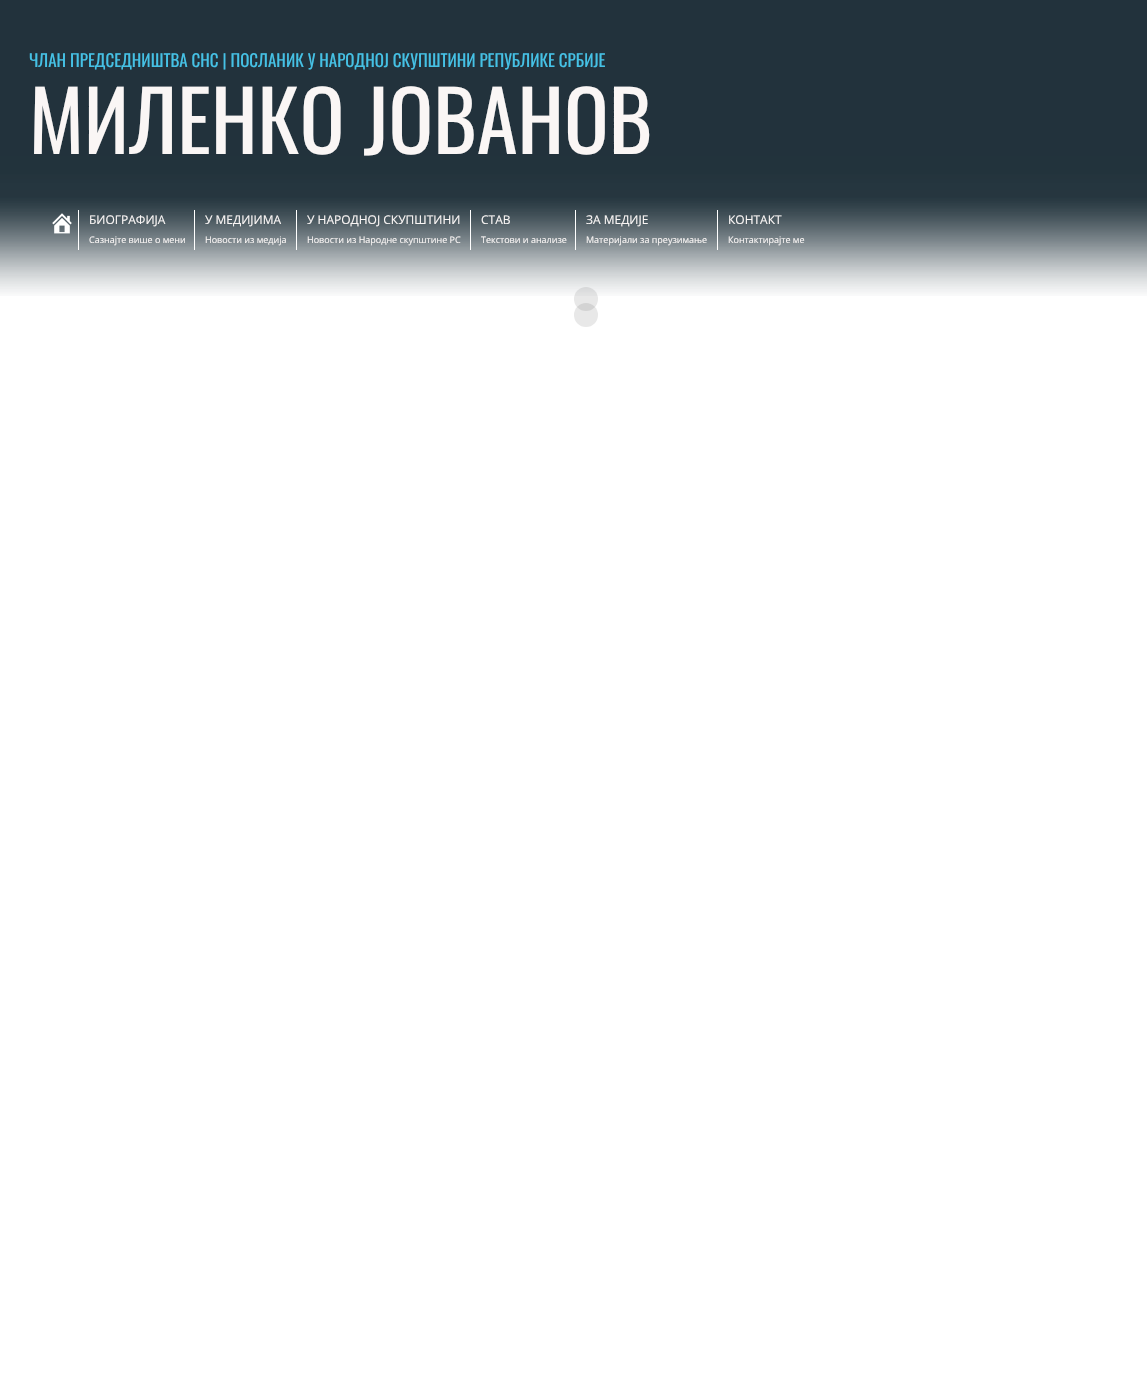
static SkFont makeFont(const char* family, int weight, float size, bool italic = false) {
  SkFontStyle style(weight, SkFontStyle::kNormal_Width,
    italic ? SkFontStyle::kItalic_Slant : SkFontStyle::kUpright_Slant);
  SkFont result(fontMgr->matchFamilyStyle(family, style), size);
  result.setSubpixel(true);
  return result;
}

static void text(SkCanvas* c, const char* s, float x, float y, const SkFont& font, SkColor color) {
  SkPaint ink(SkColor4f::FromColor(color));
  ink.setAntiAlias(true);
  c->drawString(s, x, y, font, ink);
}

static void box(SkCanvas* c, float l, float t, float r, float b, SkColor color) {
  SkPaint ink(SkColor4f::FromColor(color));
  ink.setAntiAlias(true);
  c->drawRect(SkRect::MakeLTRB(l, t, r, b), ink);
}

static void picture(SkCanvas* c, const char* path, float l, float t, float r, float b) {
  auto image = SkImages::DeferredFromEncodedData(SkData::MakeFromFileName(path));
  c->drawImageRect(image, SkRect::MakeLTRB(l, t, r, b), SkSamplingOptions());
}

void draw(SkCanvas* c) {
  SkPaint paint;
  paint.setAntiAlias(true);
  c->clear(0xffffffff);
  paint.setColor(0xffe8e8e8);
  c->drawCircle(586, 299, 12, paint);
  picture(c, "img_01.png", 0, 0, 1147, 296);
  SkFont face1 = makeFont("Oswald", 400, 17);
  text(c, "ЧЛАН ПРЕДСЕДНИШТВА СНС | ПОСЛАНИК У НАРОДНОЈ СКУПШТИНИ РЕПУБЛИКЕ СРБИЈЕ", 29, 67, face1, 0xff45c1e5);
  SkFont face2 = makeFont("Oswald", 400, 83);
  text(c, "МИЛЕНКО ЈОВАНОВ", 29, 154, face2, 0xfffaf6f5);
  picture(c, "img_02.png", 52, 213, 72, 234);
  box(c, 78, 210, 79, 250, 0xffffffff);
  SkFont face3 = makeFont("Open Sans", 400, 12);
  text(c, "БИОГРАФИЈА", 89, 224, face3, 0xfffaf6f5);
  SkFont face4 = makeFont("Open Sans", 400, 9);
  text(c, "Сазнајте више о мени", 89, 243, face4, 0xfffaf6f5);
  box(c, 194, 210, 195, 250, 0xffffffff);
  text(c, "У МЕДИЈИМА", 205, 224, face3, 0xfffaf6f5);
  text(c, "Новости из медија", 205, 243, face4, 0xfffaf6f5);
  box(c, 296, 210, 297, 250, 0xffffffff);
  text(c, "У НАРОДНОЈ СКУПШТИНИ", 307, 224, face3, 0xfffaf6f5);
  text(c, "Новости из Народне скупштине РС", 307, 243, face4, 0xfffaf6f5);
  box(c, 470, 210, 471, 250, 0xffffffff);
  text(c, "СТАВ", 481, 224, face3, 0xfffaf6f5);
  text(c, "Текстови и анализе", 481, 243, face4, 0xfffaf6f5);
  box(c, 575, 210, 576, 250, 0xffffffff);
  text(c, "ЗА МЕДИЈЕ", 586, 224, face3, 0xfffaf6f5);
  text(c, "Материјали за преузимање", 586, 243, face4, 0xfffaf6f5);
  box(c, 717, 210, 718, 250, 0xffffffff);
  text(c, "КОНТАКТ", 728, 224, face3, 0xfffaf6f5);
  text(c, "Контактирајте ме", 728, 243, face4, 0xfffaf6f5);
  paint.setColor(0x17000000);
  c->drawCircle(586, 315, 12, paint);
}
